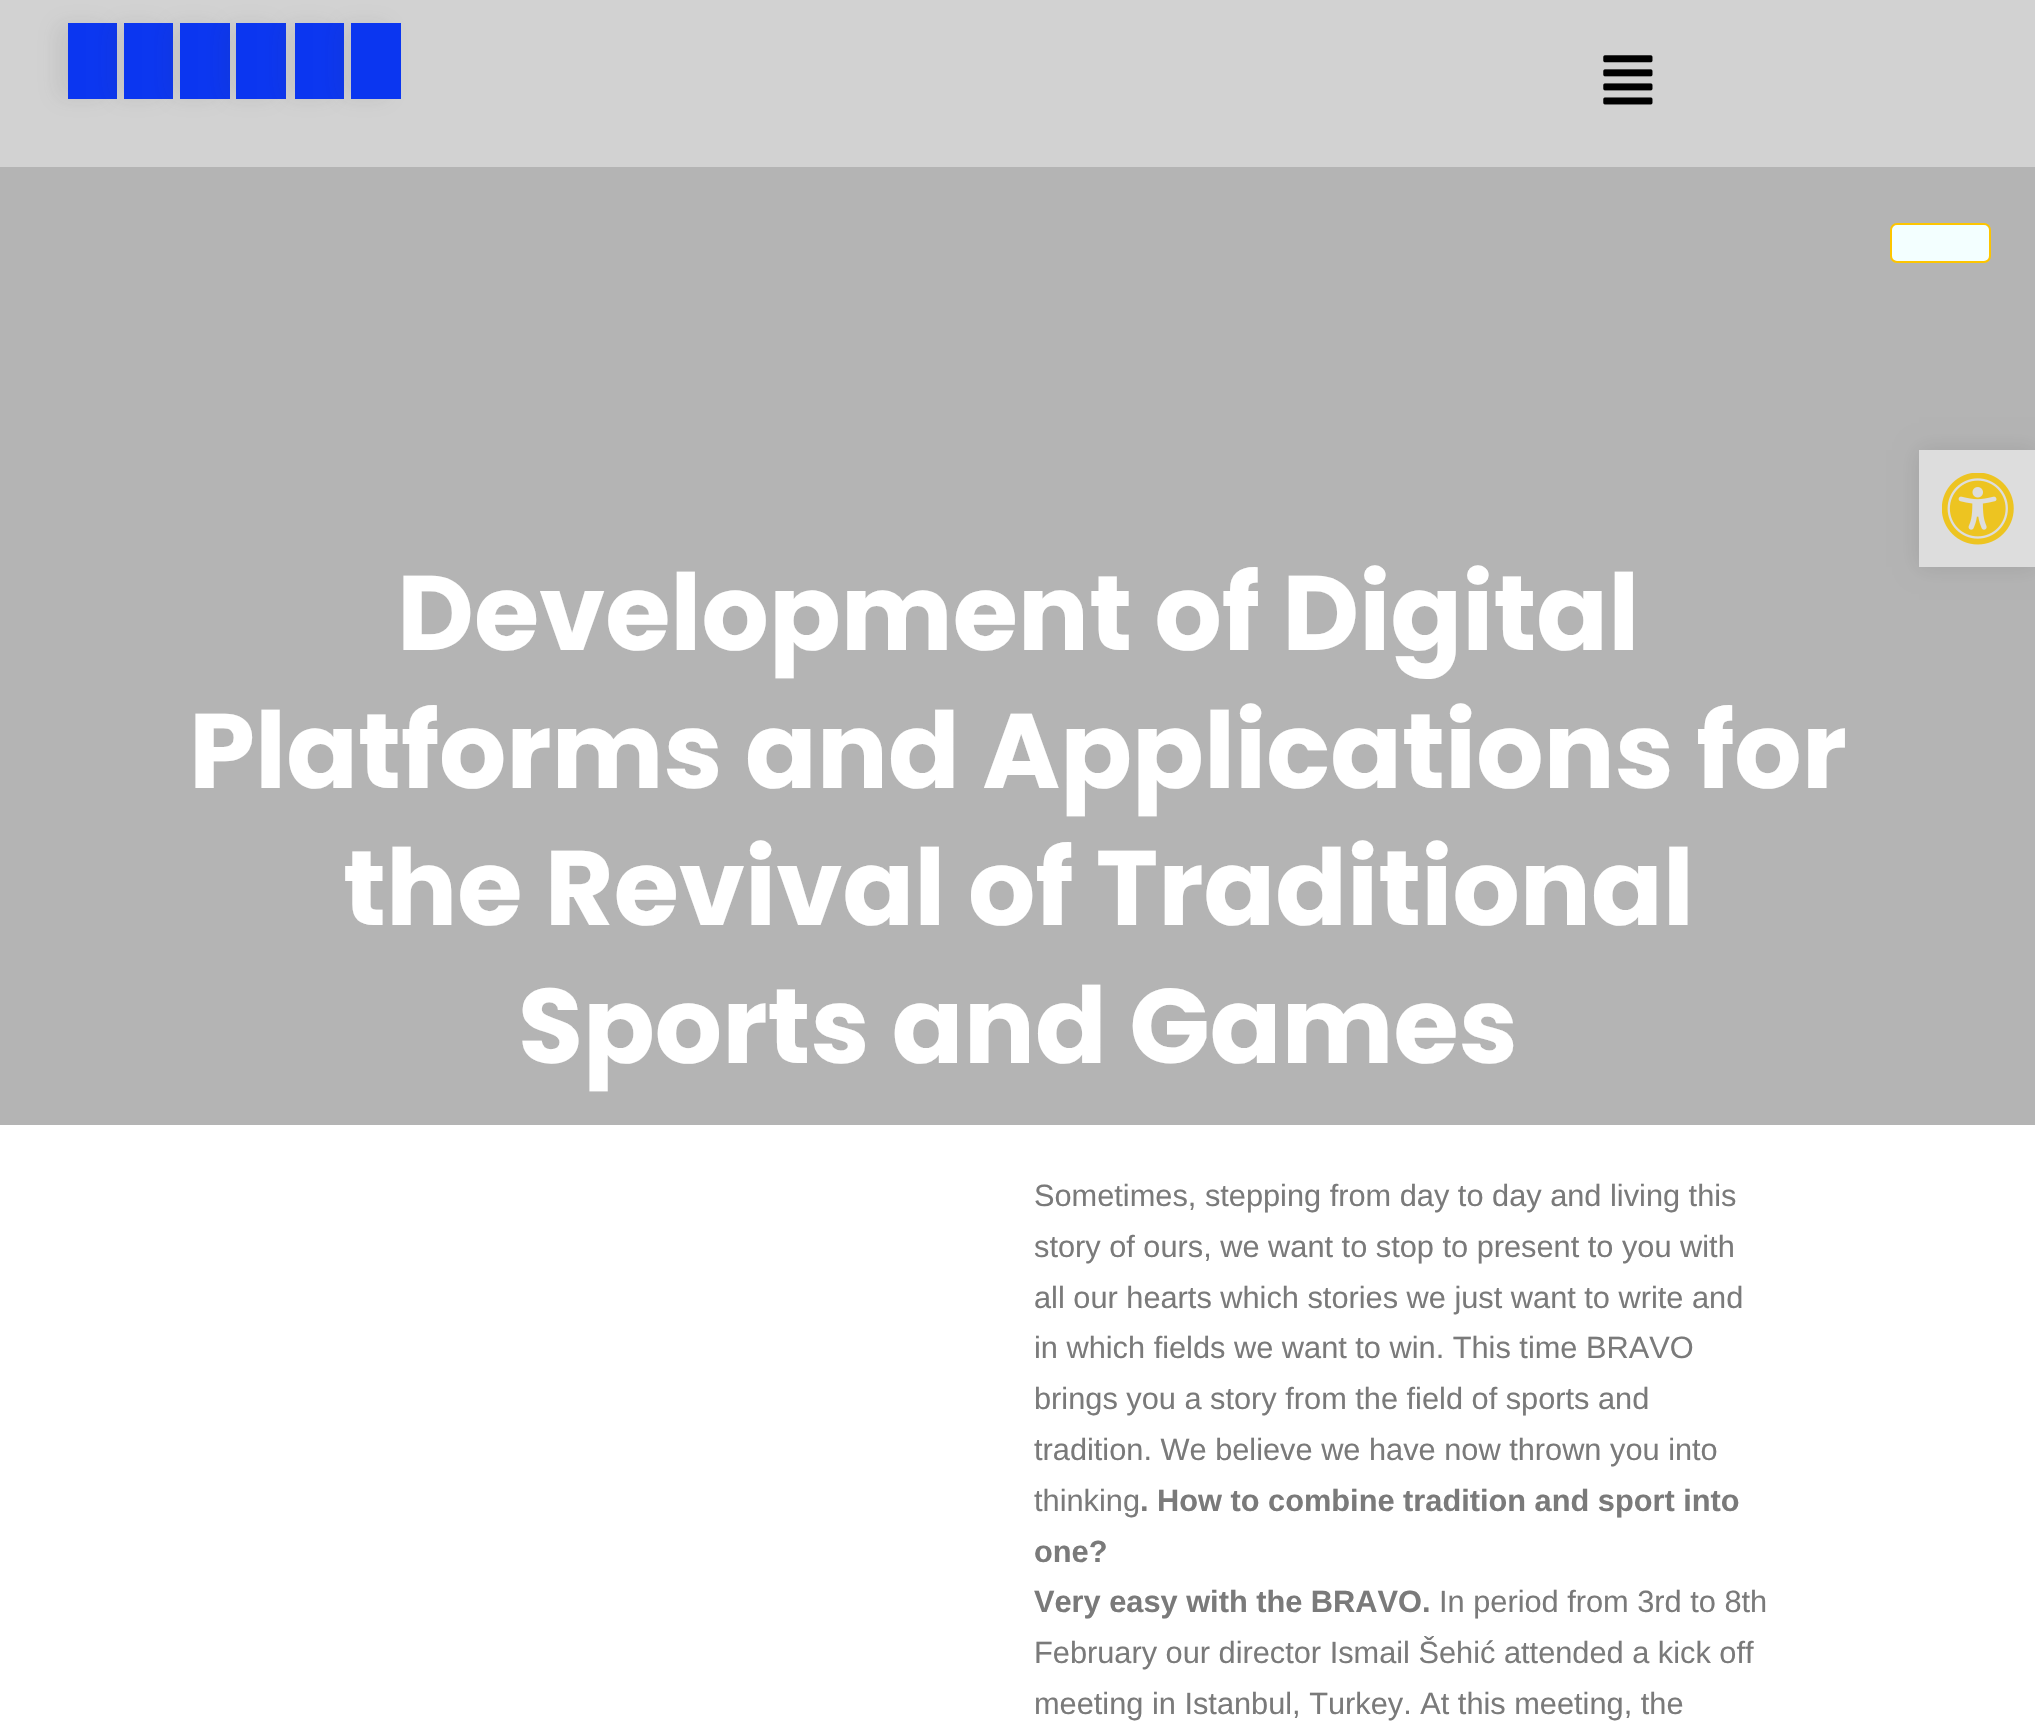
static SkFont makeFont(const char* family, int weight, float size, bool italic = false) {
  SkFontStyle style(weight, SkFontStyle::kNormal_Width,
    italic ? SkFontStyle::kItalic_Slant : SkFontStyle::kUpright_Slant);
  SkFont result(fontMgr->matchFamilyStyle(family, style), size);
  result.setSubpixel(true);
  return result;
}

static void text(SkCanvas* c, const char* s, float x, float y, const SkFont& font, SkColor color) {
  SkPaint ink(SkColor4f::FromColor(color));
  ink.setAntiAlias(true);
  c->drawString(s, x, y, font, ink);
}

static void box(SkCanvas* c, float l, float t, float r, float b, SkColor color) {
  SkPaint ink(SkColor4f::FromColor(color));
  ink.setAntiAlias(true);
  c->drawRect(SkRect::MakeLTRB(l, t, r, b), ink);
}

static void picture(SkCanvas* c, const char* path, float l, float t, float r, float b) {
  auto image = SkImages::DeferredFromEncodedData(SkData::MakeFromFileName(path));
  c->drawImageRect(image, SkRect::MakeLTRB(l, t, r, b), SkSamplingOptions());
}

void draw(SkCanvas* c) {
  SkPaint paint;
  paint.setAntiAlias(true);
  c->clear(0xffffffff);
  box(c, 0, 167, 2035, 1125, 0xffb4b4b4);
  paint.setColor(0x1a000000);
  paint.setMaskFilter(SkMaskFilter::MakeBlur(kNormal_SkBlurStyle, 11));
  c->drawRect(SkRect::MakeLTRB(1919, 450, 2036, 567), paint);
  paint.setMaskFilter(nullptr);
  box(c, 1919, 450, 2035, 567, 0xffdddddd);
  picture(c, "img_01.png", 1942, 473, 2014, 545);
  box(c, 0, 0, 2035, 167, 0xffd2d2d2);
  paint.setColor(0x1a424242);
  paint.setMaskFilter(SkMaskFilter::MakeBlur(kNormal_SkBlurStyle, 11));
  c->drawRect(SkRect::MakeLTRB(56, 23, 106, 99), paint);
  paint.setMaskFilter(nullptr);
  box(c, 68, 23, 117, 99, 0xff0b36f0);
  paint.setMaskFilter(SkMaskFilter::MakeBlur(kNormal_SkBlurStyle, 11));
  c->drawRect(SkRect::MakeLTRB(113, 23, 162, 99), paint);
  paint.setMaskFilter(nullptr);
  box(c, 124, 23, 173, 99, 0xff0b36f0);
  paint.setMaskFilter(SkMaskFilter::MakeBlur(kNormal_SkBlurStyle, 11));
  c->drawRect(SkRect::MakeLTRB(169, 23, 218, 99), paint);
  paint.setMaskFilter(nullptr);
  box(c, 180, 23, 230, 99, 0xff0b36f0);
  paint.setMaskFilter(SkMaskFilter::MakeBlur(kNormal_SkBlurStyle, 11));
  c->drawRect(SkRect::MakeLTRB(225, 23, 275, 99), paint);
  paint.setMaskFilter(nullptr);
  box(c, 236, 23, 286, 99, 0xff0b36f0);
  paint.setMaskFilter(SkMaskFilter::MakeBlur(kNormal_SkBlurStyle, 11));
  c->drawRect(SkRect::MakeLTRB(284, 23, 333, 99), paint);
  paint.setMaskFilter(nullptr);
  box(c, 295, 23, 344, 99, 0xff0b36f0);
  paint.setMaskFilter(SkMaskFilter::MakeBlur(kNormal_SkBlurStyle, 11));
  c->drawRect(SkRect::MakeLTRB(340, 23, 389, 99), paint);
  paint.setMaskFilter(nullptr);
  box(c, 351, 23, 401, 99, 0xff0b36f0);
  picture(c, "img_02.png", 1603, 55, 1653, 105);
  paint.setColor(0xfff3ffff);
  c->drawRoundRect(SkRect::MakeLTRB(1891, 224, 1990, 262), 6, 6, paint);
  paint.setStyle(SkPaint::kStroke_Style);
  paint.setStrokeWidth(2);
  paint.setColor(0xfffdc500);
  c->drawRoundRect(SkRect::MakeLTRB(1891, 224, 1990, 262), 6, 6, paint);
  SkFont face1 = makeFont("Poppins", 700, 105.75f);
  text(c, "Development of Digital", 397, 650, face1, 0xffffffff);
  text(c, "Platforms and Applications for", 189, 788, face1, 0xffffffff);
  text(c, "the Revival of Traditional", 343, 925, face1, 0xffffffff);
  text(c, "Sports and Games", 518, 1063, face1, 0xffffffff);
  SkFont face2 = makeFont("Liberation Sans", 400, 30.75f);
  text(c, "Sometimes, stepping from day to day and living this", 1034, 1206, face2, 0xff7a7a7a);
  text(c, "story of ours, we want to stop to present to you with", 1034, 1257, face2, 0xff7a7a7a);
  text(c, "all our hearts which stories we just want to write and", 1034, 1308, face2, 0xff7a7a7a);
  text(c, "in which fields we want to win. This time BRAVO", 1034, 1358, face2, 0xff7a7a7a);
  text(c, "brings you a story from the field of sports and", 1034, 1409, face2, 0xff7a7a7a);
  text(c, "tradition. We believe we have now thrown you into", 1034, 1460, face2, 0xff7a7a7a);
  text(c, "thinking", 1034, 1511, face2, 0xff7a7a7a);
  SkFont face3 = makeFont("Liberation Sans", 700, 30.75f);
  text(c, ". How to combine tradition and sport into", 1140, 1511, face3, 0xff7a7a7a);
  text(c, "one?", 1034, 1562, face3, 0xff7a7a7a);
  text(c, "Very easy with the BRAVO.", 1034, 1612, face3, 0xff7a7a7a);
  text(c, "In period from 3rd to 8th", 1439, 1612, face2, 0xff7a7a7a);
  text(c, "February our director Ismail Šehić attended a kick off", 1034, 1663, face2, 0xff7a7a7a);
  text(c, "meeting in Istanbul, Turkey. At this meeting, the", 1034, 1714, face2, 0xff7a7a7a);
}
